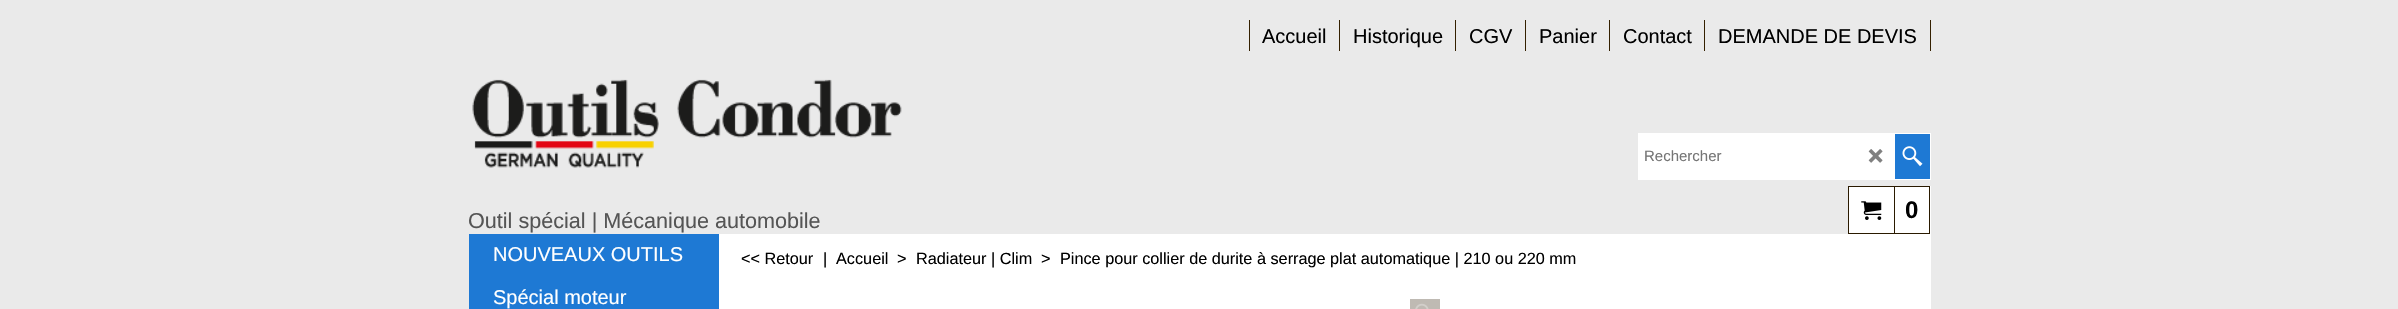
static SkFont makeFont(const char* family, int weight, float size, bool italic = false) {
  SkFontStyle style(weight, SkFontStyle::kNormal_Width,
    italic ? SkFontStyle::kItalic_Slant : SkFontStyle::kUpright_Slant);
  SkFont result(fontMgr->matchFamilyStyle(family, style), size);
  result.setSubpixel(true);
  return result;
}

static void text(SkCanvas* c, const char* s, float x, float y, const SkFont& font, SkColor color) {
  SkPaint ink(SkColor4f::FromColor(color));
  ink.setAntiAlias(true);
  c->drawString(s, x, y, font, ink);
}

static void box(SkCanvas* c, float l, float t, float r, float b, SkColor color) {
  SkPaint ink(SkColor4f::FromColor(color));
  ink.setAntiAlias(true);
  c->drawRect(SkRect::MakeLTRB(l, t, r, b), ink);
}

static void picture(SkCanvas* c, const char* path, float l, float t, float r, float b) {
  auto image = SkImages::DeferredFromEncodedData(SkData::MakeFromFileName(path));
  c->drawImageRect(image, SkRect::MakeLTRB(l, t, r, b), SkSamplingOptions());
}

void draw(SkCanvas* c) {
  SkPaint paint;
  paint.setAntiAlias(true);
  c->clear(0xffeaeaea);
  box(c, 1249, 20, 1250, 51, 0xff342000);
  SkFont face1 = makeFont("Liberation Sans", 400, 20);
  text(c, "Accueil", 1262, 43, face1, 0xff000000);
  box(c, 1339, 20, 1340, 51, 0xff342000);
  text(c, "Historique", 1353, 43, face1, 0xff000000);
  box(c, 1455, 20, 1456, 51, 0xff342000);
  text(c, "CGV", 1469, 43, face1, 0xff000000);
  box(c, 1525, 20, 1526, 51, 0xff342000);
  text(c, "Panier", 1539, 43, face1, 0xff000000);
  box(c, 1609, 20, 1610, 51, 0xff342000);
  text(c, "Contact", 1623, 43, face1, 0xff000000);
  box(c, 1704, 20, 1705, 51, 0xff342000);
  text(c, "DEMANDE DE DEVIS", 1718, 43, face1, 0xff000000);
  box(c, 1930, 20, 1931, 51, 0xff342000);
  paint.setStyle(SkPaint::kStroke_Style);
  paint.setStrokeWidth(1);
  paint.setColor(0xffffffff);
  c->drawRect(SkRect::MakeLTRB(1638.5f, 133.5f, 1930.5f, 179.5f), paint);
  box(c, 1639, 134, 1895, 179, 0xffffffff);
  SkFont face2 = makeFont("Liberation Sans", 400, 15);
  text(c, "Rechercher", 1644, 161, face2, 0xff757575);
  picture(c, "img_01.png", 1868, 149, 1883, 163);
  box(c, 1895, 134, 1930, 179, 0xff1e79d4);
  picture(c, "img_02.png", 1902, 146, 1923, 167);
  box(c, 1849, 186, 1931, 234, 0xffffffff);
  paint.setColor(0xff2a1a00);
  c->drawRect(SkRect::MakeLTRB(1848.5f, 186.5f, 1894.5f, 233.5f), paint);
  picture(c, "img_03.png", 1861, 201, 1882, 220);
  c->drawRect(SkRect::MakeLTRB(1894.5f, 186.5f, 1929.5f, 233.5f), paint);
  SkFont face3 = makeFont("Liberation Sans", 700, 24);
  text(c, "0", 1905, 218, face3, 0xff000000);
  picture(c, "img_04.png", 472, 79, 902, 168);
  SkFont face4 = makeFont("Liberation Sans", 400, 21.6f);
  text(c, "Outil spécial | Mécanique automobile", 468, 228, face4, 0xff555555);
  box(c, 469, 234, 719, 309, 0xff1e79d4);
  text(c, "NOUVEAUX OUTILS", 493, 261, face1, 0xffffffff);
  text(c, "Spécial moteur", 493, 304, face1, 0xffffffff);
  box(c, 719, 234, 1931, 309, 0xffffffff);
  SkFont face5 = makeFont("Liberation Sans", 400, 16.25f);
  text(c, "<< Retour", 741, 264, face5, 0xff000000);
  text(c, "|", 823, 264, face5, 0xff000000);
  text(c, "Accueil", 836, 264, face5, 0xff000000);
  text(c, ">", 897, 264, face5, 0xff000000);
  text(c, "Radiateur | Clim", 916, 264, face5, 0xff000000);
  text(c, ">", 1041, 264, face5, 0xff000000);
  text(c, "Pince pour collier de durite à serrage plat automatique | 210 ou 220 mm", 1060, 264, face5, 0xff000000);
  box(c, 1410, 299, 1440, 309, 0xffbfbab3);
  picture(c, "img_05.png", 1415, 303, 1429, 309);
}
